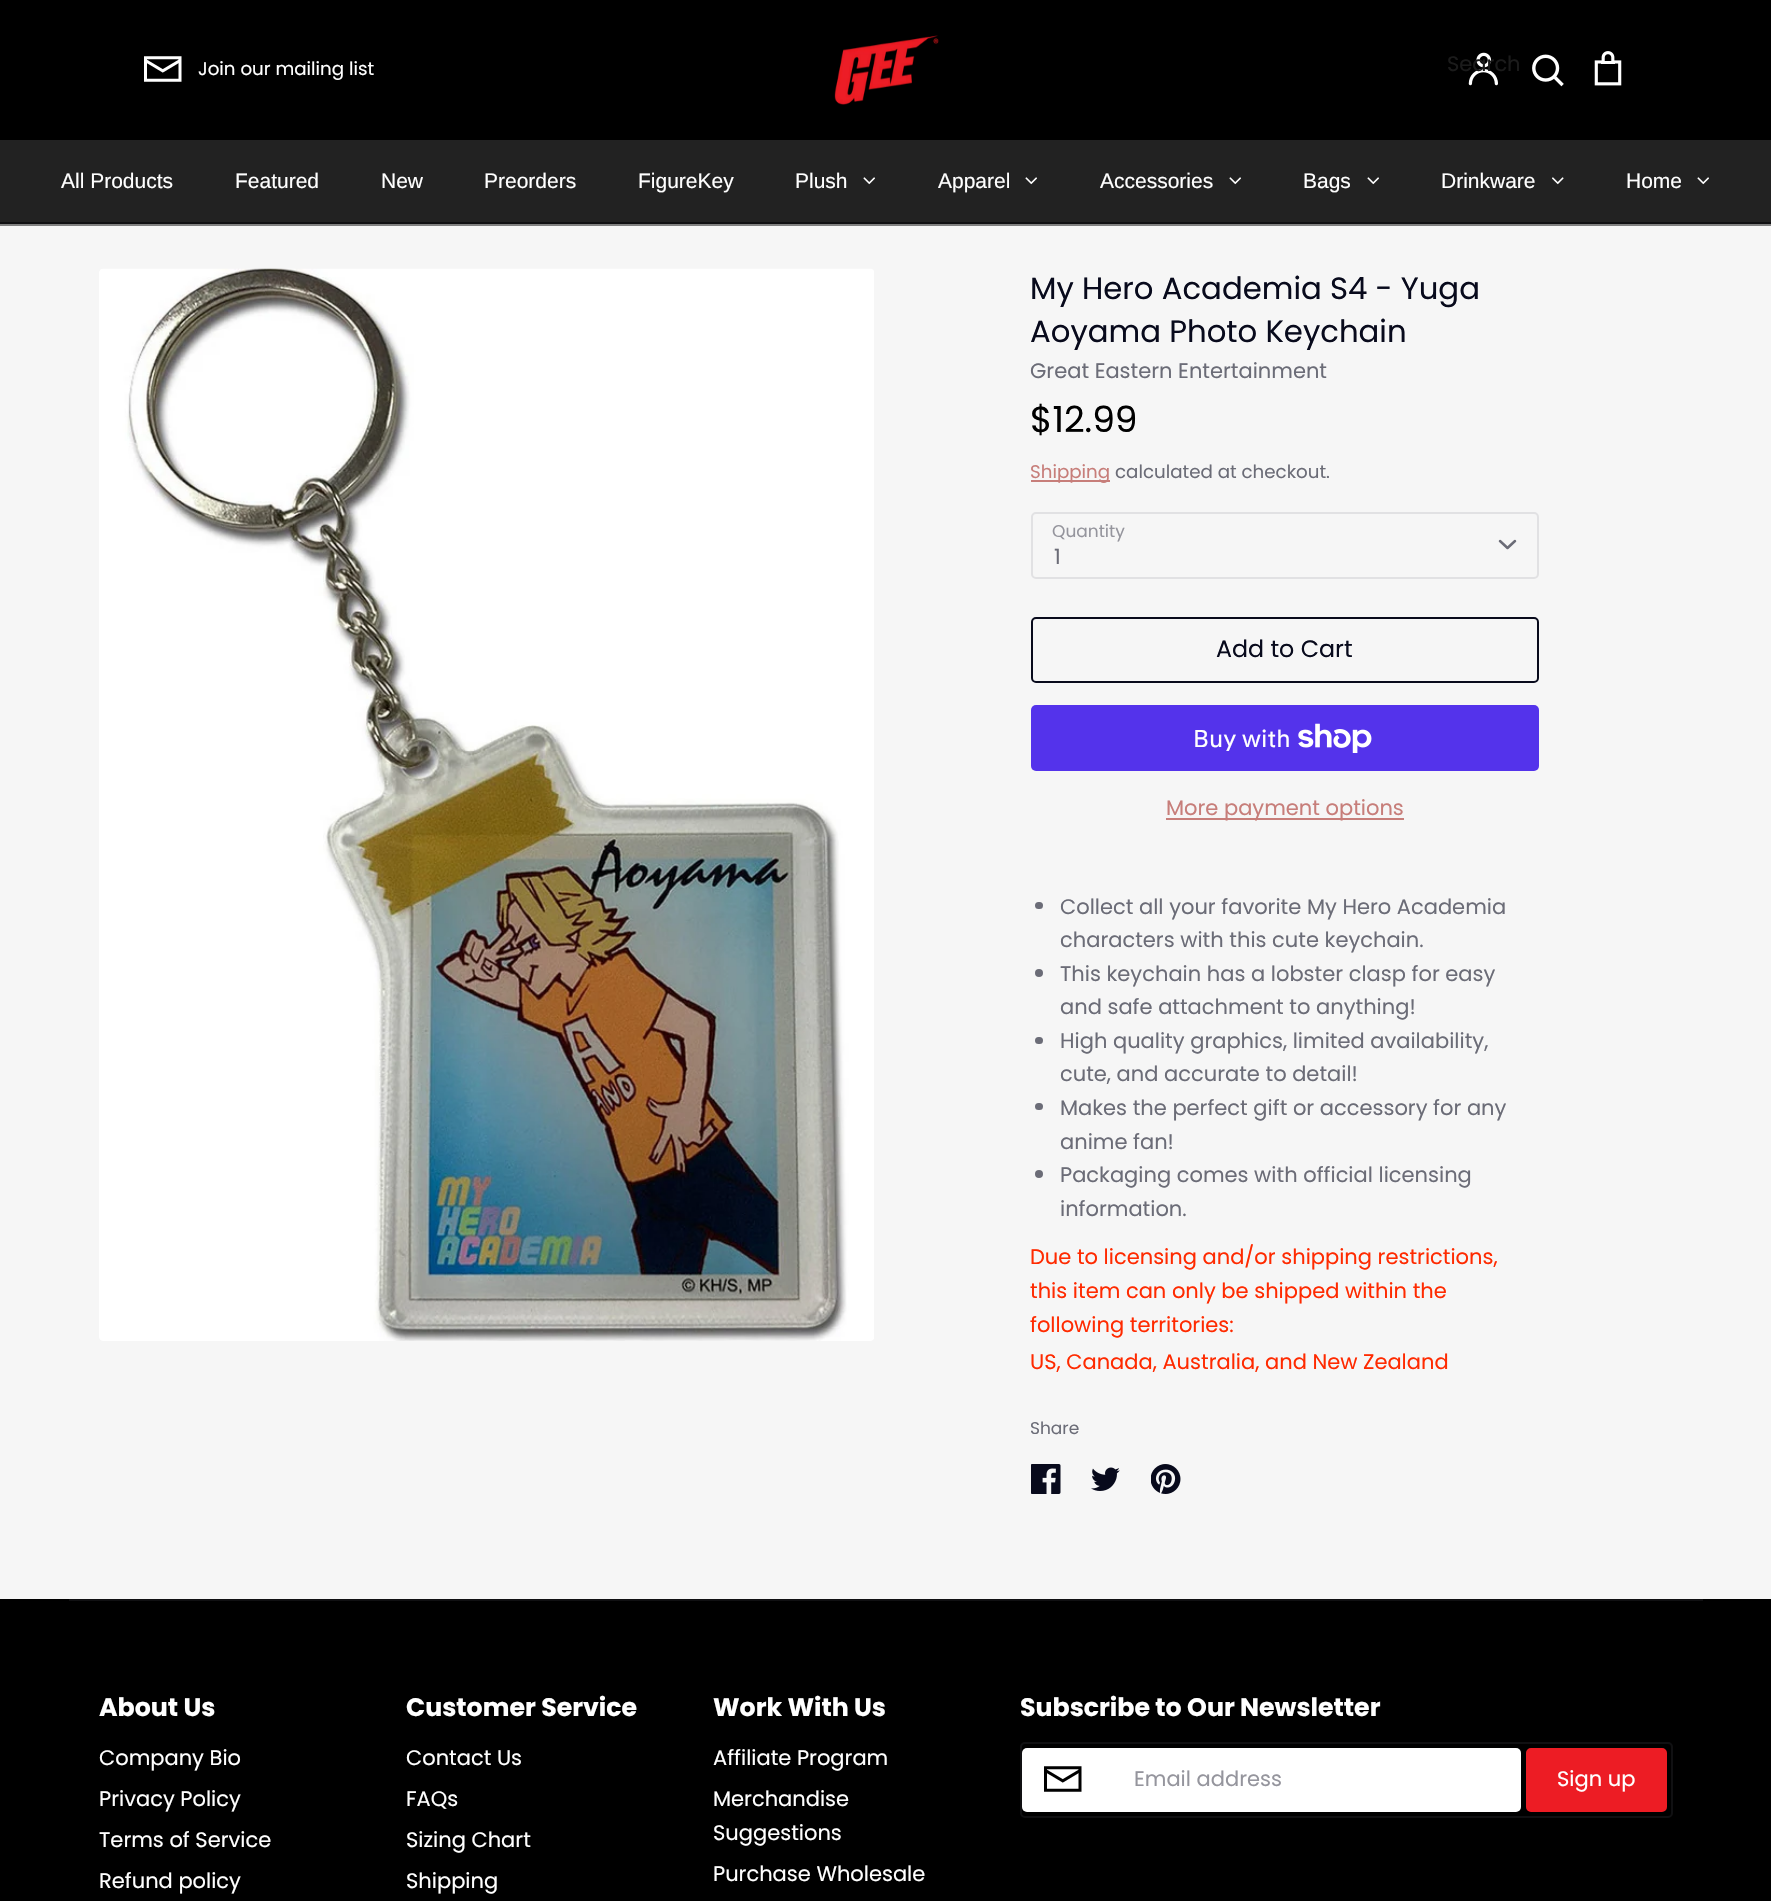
static SkFont makeFont(const char* family, int weight, float size, bool italic = false) {
  SkFontStyle style(weight, SkFontStyle::kNormal_Width,
    italic ? SkFontStyle::kItalic_Slant : SkFontStyle::kUpright_Slant);
  SkFont result(fontMgr->matchFamilyStyle(family, style), size);
  result.setSubpixel(true);
  return result;
}

static void text(SkCanvas* c, const char* s, float x, float y, const SkFont& font, SkColor color) {
  SkPaint ink(SkColor4f::FromColor(color));
  ink.setAntiAlias(true);
  c->drawString(s, x, y, font, ink);
}

static void box(SkCanvas* c, float l, float t, float r, float b, SkColor color) {
  SkPaint ink(SkColor4f::FromColor(color));
  ink.setAntiAlias(true);
  c->drawRect(SkRect::MakeLTRB(l, t, r, b), ink);
}

static void roundBox(SkCanvas* c, float l, float t, float r, float b, float radius, SkColor color) {
  SkPaint ink(SkColor4f::FromColor(color));
  ink.setAntiAlias(true);
  c->drawRoundRect(SkRect::MakeLTRB(l, t, r, b), radius, radius, ink);
}

static void picture(SkCanvas* c, const char* path, float l, float t, float r, float b) {
  auto image = SkImages::DeferredFromEncodedData(SkData::MakeFromFileName(path));
  c->drawImageRect(image, SkRect::MakeLTRB(l, t, r, b), SkSamplingOptions());
}

void draw(SkCanvas* c) {
  SkPaint paint;
  paint.setAntiAlias(true);
  c->clear(0xfff6f6f6);
  box(c, 0, 0, 1771, 140, 0xff000000);
  box(c, 0, 224, 1771, 226, 0xff808080);
  picture(c, "img_01.png", 144, 56, 182, 82);
  SkFont face1 = makeFont("Poppins", 400, 18.25f);
  text(c, "Join our mailing list", 198, 75, face1, 0xffffffff);
  picture(c, "img_02.png", 834, 35, 939, 105);
  picture(c, "img_03.png", 1468, 52, 1498, 86);
  picture(c, "img_04.png", 1594, 51, 1622, 86);
  SkFont face2 = makeFont("Poppins", 400, 21);
  text(c, "Search", 1447, 71, face2, 0xff1b1b1b);
  picture(c, "img_05.png", 1532, 54, 1564, 87);
  box(c, 0, 222, 1771, 224, 0xff101012);
  box(c, 0, 140, 1771, 222, 0xff222222);
  SkFont face3 = makeFont("Liberation Sans", 400, 21);
  text(c, "All Products", 61, 188, face3, 0xffffffff);
  text(c, "Featured", 235, 188, face3, 0xffffffff);
  text(c, "New", 381, 188, face3, 0xffffffff);
  text(c, "Preorders", 484, 188, face3, 0xffffffff);
  text(c, "FigureKey", 638, 188, face3, 0xffffffff);
  text(c, "Plush", 795, 188, face3, 0xffffffff);
  picture(c, "img_06.png", 863, 177, 875, 185);
  text(c, "Apparel", 938, 188, face3, 0xffffffff);
  picture(c, "img_06.png", 1025, 177, 1037, 185);
  text(c, "Accessories", 1100, 188, face3, 0xffffffff);
  picture(c, "img_06.png", 1229, 177, 1241, 185);
  text(c, "Bags", 1303, 188, face3, 0xffffffff);
  picture(c, "img_06.png", 1367, 177, 1379, 185);
  text(c, "Drinkware", 1441, 188, face3, 0xffffffff);
  picture(c, "img_07.png", 1552, 177, 1564, 185);
  text(c, "Home", 1626, 188, face3, 0xffffffff);
  picture(c, "img_06.png", 1697, 177, 1709, 185);
  picture(c, "img_08.png", 99, 268, 874, 1341);
  SkFont face4 = makeFont("Poppins", 400, 30.75f);
  text(c, "My Hero Academia S4 - Yuga", 1030, 299, face4, 0xff080a1c);
  text(c, "Aoyama Photo Keychain", 1030, 342, face4, 0xff080a1c);
  text(c, "Great Eastern Entertainment", 1030, 378, face2, 0xff6b6c77);
  SkFont face5 = makeFont("Poppins", 400, 36);
  text(c, "$12.99", 1030, 432, face5, 0xff000000);
  box(c, 1031, 480, 1110, 482, 0xffc77e7a);
  text(c, "Shipping", 1030, 478, face1, 0xffc77e7a);
  text(c, "calculated at checkout.", 1115, 478, face1, 0xff6b6c77);
  SkFont face6 = makeFont("Poppins", 400, 17);
  text(c, "Quantity", 1052, 537, face6, 0xff95959d);
  paint.setStyle(SkPaint::kStroke_Style);
  paint.setStrokeWidth(2);
  paint.setColor(0xffe1e1e3);
  c->drawRoundRect(SkRect::MakeLTRB(1032, 513, 1538, 578), 4, 4, paint);
  paint.setStrokeWidth(2.5f);
  paint.setStrokeCap(SkPaint::kRound_Cap);
  paint.setStrokeJoin(SkPaint::kRound_Join);
  paint.setColor(0xff6b6c77);
  c->drawPath(SkPathBuilder().moveTo(1500, 541).lineTo(1507.5f, 548).lineTo(1515, 541).detach(), paint);
  text(c, "1", 1054, 564, face2, 0xff6b6c77);
  paint.setStrokeWidth(2);
  paint.setStrokeCap(SkPaint::kButt_Cap);
  paint.setStrokeJoin(SkPaint::kMiter_Join);
  paint.setColor(0xff080a1c);
  c->drawRoundRect(SkRect::MakeLTRB(1032, 618, 1538, 682), 4, 4, paint);
  SkFont face7 = makeFont("Poppins", 400, 23.75f);
  text(c, "Add to Cart", 1216, 657, face7, 0xff080a1c);
  roundBox(c, 1031, 705, 1539, 771, 5, 0xff5433eb);
  SkFont face8 = makeFont("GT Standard", 400, 24);
  text(c, "Buy with", 1193, 747, face8, 0xffffffff);
  picture(c, "img_09.png", 1298, 723, 1372, 753);
  box(c, 1166, 818, 1404, 820, 0xffc77e7a);
  text(c, "More payment options", 1166, 815, face2, 0xffc77e7a);
  roundBox(c, 1035, 902, 1043, 909, 3.5f, 0xff6b6c77);
  text(c, "Collect all your favorite My Hero Academia", 1060, 914, face2, 0xff6b6c77);
  text(c, "characters with this cute keychain.", 1060, 947, face2, 0xff6b6c77);
  paint.setStyle(SkPaint::kFill_Style);
  paint.setColor(0xff6b6c77);
  c->drawCircle(1039, 973, 4, paint);
  text(c, "This keychain has a lobster clasp for easy", 1060, 981, face2, 0xff6b6c77);
  text(c, "and safe attachment to anything!", 1060, 1014, face2, 0xff6b6c77);
  roundBox(c, 1035, 1037, 1043, 1044, 3.5f, 0xff6b6c77);
  text(c, "High quality graphics, limited availability,", 1060, 1048, face2, 0xff6b6c77);
  text(c, "cute, and accurate to detail!", 1060, 1081, face2, 0xff6b6c77);
  roundBox(c, 1035, 1103, 1043, 1110, 3.5f, 0xff6b6c77);
  text(c, "Makes the perfect gift or accessory for any", 1060, 1115, face2, 0xff6b6c77);
  text(c, "anime fan!", 1060, 1149, face2, 0xff6b6c77);
  c->drawCircle(1039, 1174, 4, paint);
  text(c, "Packaging comes with official licensing", 1060, 1182, face2, 0xff6b6c77);
  text(c, "information.", 1060, 1216, face2, 0xff6b6c77);
  text(c, "Due to licensing and/or shipping restrictions,", 1030, 1264, face2, 0xffff2a00);
  text(c, "this item can only be shipped within the", 1030, 1298, face2, 0xffff2a00);
  text(c, "following territories:", 1030, 1332, face2, 0xffff2a00);
  text(c, "US, Canada, Australia, and New Zealand", 1030, 1369, face2, 0xffff2a00);
  text(c, "Share", 1030, 1434, face6, 0xff6b6c77);
  picture(c, "img_10.png", 1031, 1464, 1061, 1494);
  picture(c, "img_11.png", 1091, 1467, 1120, 1491);
  picture(c, "img_12.png", 1151, 1464, 1181, 1494);
  box(c, 0, 1599, 1771, 1901, 0xff000000);
  box(c, 69, 1599, 1703, 1601, 0xff101012);
  SkFont face9 = makeFont("Poppins", 700, 25.25f);
  text(c, "About Us", 99, 1716, face9, 0xffffffff);
  text(c, "Company Bio", 99, 1765, face2, 0xffffffff);
  text(c, "Privacy Policy", 99, 1806, face2, 0xffffffff);
  text(c, "Terms of Service", 99, 1847, face2, 0xffffffff);
  text(c, "Refund policy", 99, 1888, face2, 0xffffffff);
  text(c, "Customer Service", 406, 1716, face9, 0xffffffff);
  text(c, "Contact Us", 406, 1765, face2, 0xffffffff);
  text(c, "FAQs", 406, 1806, face2, 0xffffffff);
  text(c, "Sizing Chart", 406, 1847, face2, 0xffffffff);
  text(c, "Shipping", 406, 1888, face2, 0xffffffff);
  text(c, "Work With Us", 713, 1716, face9, 0xffffffff);
  text(c, "Affiliate Program", 713, 1765, face2, 0xffffffff);
  text(c, "Merchandise", 713, 1806, face2, 0xffffffff);
  text(c, "Suggestions", 713, 1840, face2, 0xffffffff);
  text(c, "Purchase Wholesale", 713, 1881, face2, 0xffffffff);
  text(c, "Subscribe to Our Newsletter", 1020, 1716, face9, 0xffffffff);
  paint.setStyle(SkPaint::kStroke_Style);
  paint.setColor(0xff101012);
  c->drawRoundRect(SkRect::MakeLTRB(1021, 1743, 1672, 1817), 4, 4, paint);
  roundBox(c, 1022, 1748, 1521, 1812, 5, 0xffffffff);
  picture(c, "img_13.png", 1044, 1766, 1082, 1792);
  text(c, "Email address", 1134, 1786, face2, 0xff95959d);
  paint.setStyle(SkPaint::kFill_Style);
  paint.setColor(0xffed1c24);
  c->drawRoundRect(SkRect::MakeLTRB(1527, 1749, 1666, 1811), 4, 4, paint);
  paint.setStyle(SkPaint::kStroke_Style);
  c->drawRoundRect(SkRect::MakeLTRB(1527, 1749, 1666, 1811), 4, 4, paint);
  text(c, "Sign up", 1557, 1786, face2, 0xffffffff);
}
